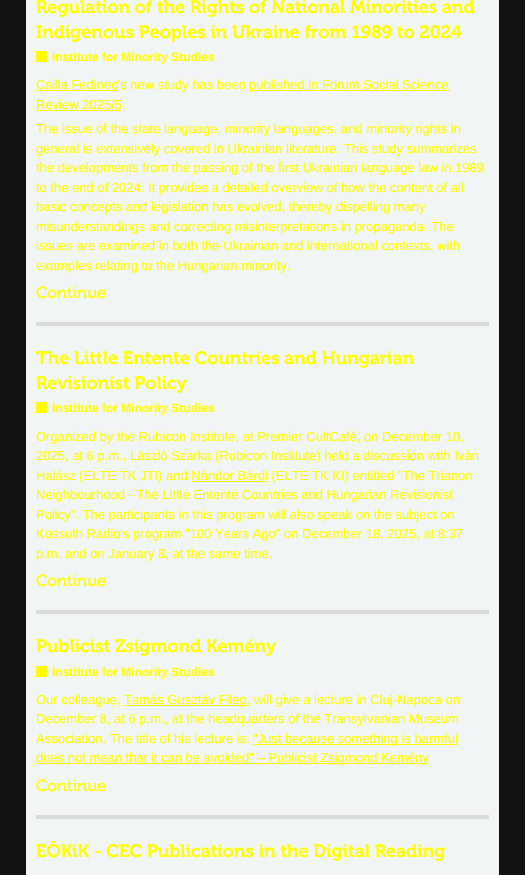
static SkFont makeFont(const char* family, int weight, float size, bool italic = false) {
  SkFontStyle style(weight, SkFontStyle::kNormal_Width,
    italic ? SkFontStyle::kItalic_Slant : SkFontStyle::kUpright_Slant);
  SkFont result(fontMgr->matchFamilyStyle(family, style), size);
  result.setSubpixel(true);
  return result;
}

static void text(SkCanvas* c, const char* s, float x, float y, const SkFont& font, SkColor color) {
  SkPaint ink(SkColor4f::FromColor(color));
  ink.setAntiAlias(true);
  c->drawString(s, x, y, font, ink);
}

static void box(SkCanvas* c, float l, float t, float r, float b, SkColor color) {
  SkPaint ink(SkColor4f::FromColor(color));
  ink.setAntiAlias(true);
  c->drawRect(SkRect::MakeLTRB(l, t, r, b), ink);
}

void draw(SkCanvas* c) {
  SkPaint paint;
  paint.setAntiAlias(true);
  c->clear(0xff111111);
  box(c, 26, 0, 499, 875, 0xfff2f5f6);
  box(c, 36, 322, 489, 326, 0xffdadada);
  SkFont face1 = makeFont("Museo", 400, 18);
  text(c, "Regulation of the Rights of National Minorities and", 36, 13, face1, 0xffffff00);
  text(c, "Indigenous Peoples in Ukraine from 1989 to 2024", 36, 38, face1, 0xffffff00);
  box(c, 36, 51, 47, 62, 0xffffff00);
  SkFont face2 = makeFont("Liberation Sans", 700, 12);
  text(c, "Institute for Minority Studies", 52, 61, face2, 0xffffff00);
  box(c, 36, 90, 117, 91, 0xffffff00);
  SkFont face3 = makeFont("Liberation Sans", 400, 13);
  text(c, "Csilla Fedinec's new study has been", 36, 89, face3, 0xffffff00);
  box(c, 249, 90, 449, 91, 0xffffff00);
  text(c, "published in Forum Social Science", 249, 89, face3, 0xffffff00);
  text(c, "Review 2025/5.", 36, 109, face3, 0xffffff00);
  box(c, 36, 110, 122, 111, 0xffffff00);
  text(c, "The issue of the state language, minority languages, and minority rights in", 36, 133, face3, 0xffffff00);
  text(c, "general is extensively covered in Ukrainian literature. This study summarizes", 36, 153, face3, 0xffffff00);
  text(c, "the developments from the passing of the first Ukrainian language law in 1989", 36, 172, face3, 0xffffff00);
  text(c, "to the end of 2024. It provides a detailed overview of how the content of all", 36, 192, face3, 0xffffff00);
  text(c, "basic concepts and legislation has evolved, thereby dispelling many", 36, 211, face3, 0xffffff00);
  text(c, "misunderstandings and correcting misinterpretations in propaganda. The", 36, 231, face3, 0xffffff00);
  text(c, "issues are examined in both the Ukrainian and international contexts, with", 36, 250, face3, 0xffffff00);
  text(c, "examples relating to the Hungarian minority.", 36, 270, face3, 0xffffff00);
  SkFont face4 = makeFont("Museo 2", 400, 16);
  text(c, "Continue", 36, 298, face4, 0xffffff00);
  box(c, 36, 610, 489, 614, 0xffdadada);
  text(c, "The Little Entente Countries and Hungarian", 36, 364, face1, 0xffffff00);
  text(c, "Revisionist Policy", 36, 389, face1, 0xffffff00);
  box(c, 36, 402, 47, 413, 0xffffff00);
  text(c, "Institute for Minority Studies", 52, 412, face2, 0xffffff00);
  text(c, "Organized by the Rubicon Institute, at Premier CultCafé, on December 10,", 36, 441, face3, 0xffffff00);
  text(c, "2025, at 6 p.m., László Szarka (Rubicon Institute) held a discussion with Iván", 36, 460, face3, 0xffffff00);
  text(c, "Halász (ELTE TK JTI) and Nándor Bárdi (ELTE TK KI) entitled \"The Trianon", 36, 480, face3, 0xffffff00);
  box(c, 191, 481, 268, 482, 0xffffff00);
  text(c, "Neighbourhood - The Little Entente Countries and Hungarian Revisionist", 36, 499, face3, 0xffffff00);
  text(c, "Policy\". The participants in this program will also speak on the subject on", 36, 519, face3, 0xffffff00);
  text(c, "Kossuth Radio's program \"100 Years Ago\" on December 18, 2025, at 8:37", 36, 538, face3, 0xffffff00);
  text(c, "p.m. and on January 8, at the same time.", 36, 558, face3, 0xffffff00);
  text(c, "Continue", 36, 586, face4, 0xffffff00);
  box(c, 36, 815, 489, 819, 0xffdadada);
  text(c, "Publicist Zsigmond Kemény", 36, 652, face1, 0xffffff00);
  box(c, 36, 666, 47, 677, 0xffffff00);
  text(c, "Institute for Minority Studies", 52, 676, face2, 0xffffff00);
  text(c, "Our colleague,", 36, 704, face3, 0xffffff00);
  box(c, 124, 705, 247, 706, 0xffffff00);
  text(c, "Tamás Gusztáv Filep, will give a lecture in Cluj-Napoca on", 124, 704, face3, 0xffffff00);
  text(c, "December 8, at 6 p.m., at the headquarters of the Transylvanian Museum", 36, 723, face3, 0xffffff00);
  text(c, "Association. The title of his lecture is:", 36, 743, face3, 0xffffff00);
  box(c, 253, 744, 458, 745, 0xffffff00);
  text(c, "\"Just because something is harmful", 253, 743, face3, 0xffffff00);
  box(c, 36, 763, 428, 764, 0xffffff00);
  text(c, "does not mean that it can be avoided\" – Publicist Zsigmond Kemény", 36, 762, face3, 0xffffff00);
  text(c, "Continue", 36, 791, face4, 0xffffff00);
  text(c, "EÖKiK - CEC Publications in the Digital Reading", 36, 857, face1, 0xffffff00);
}
